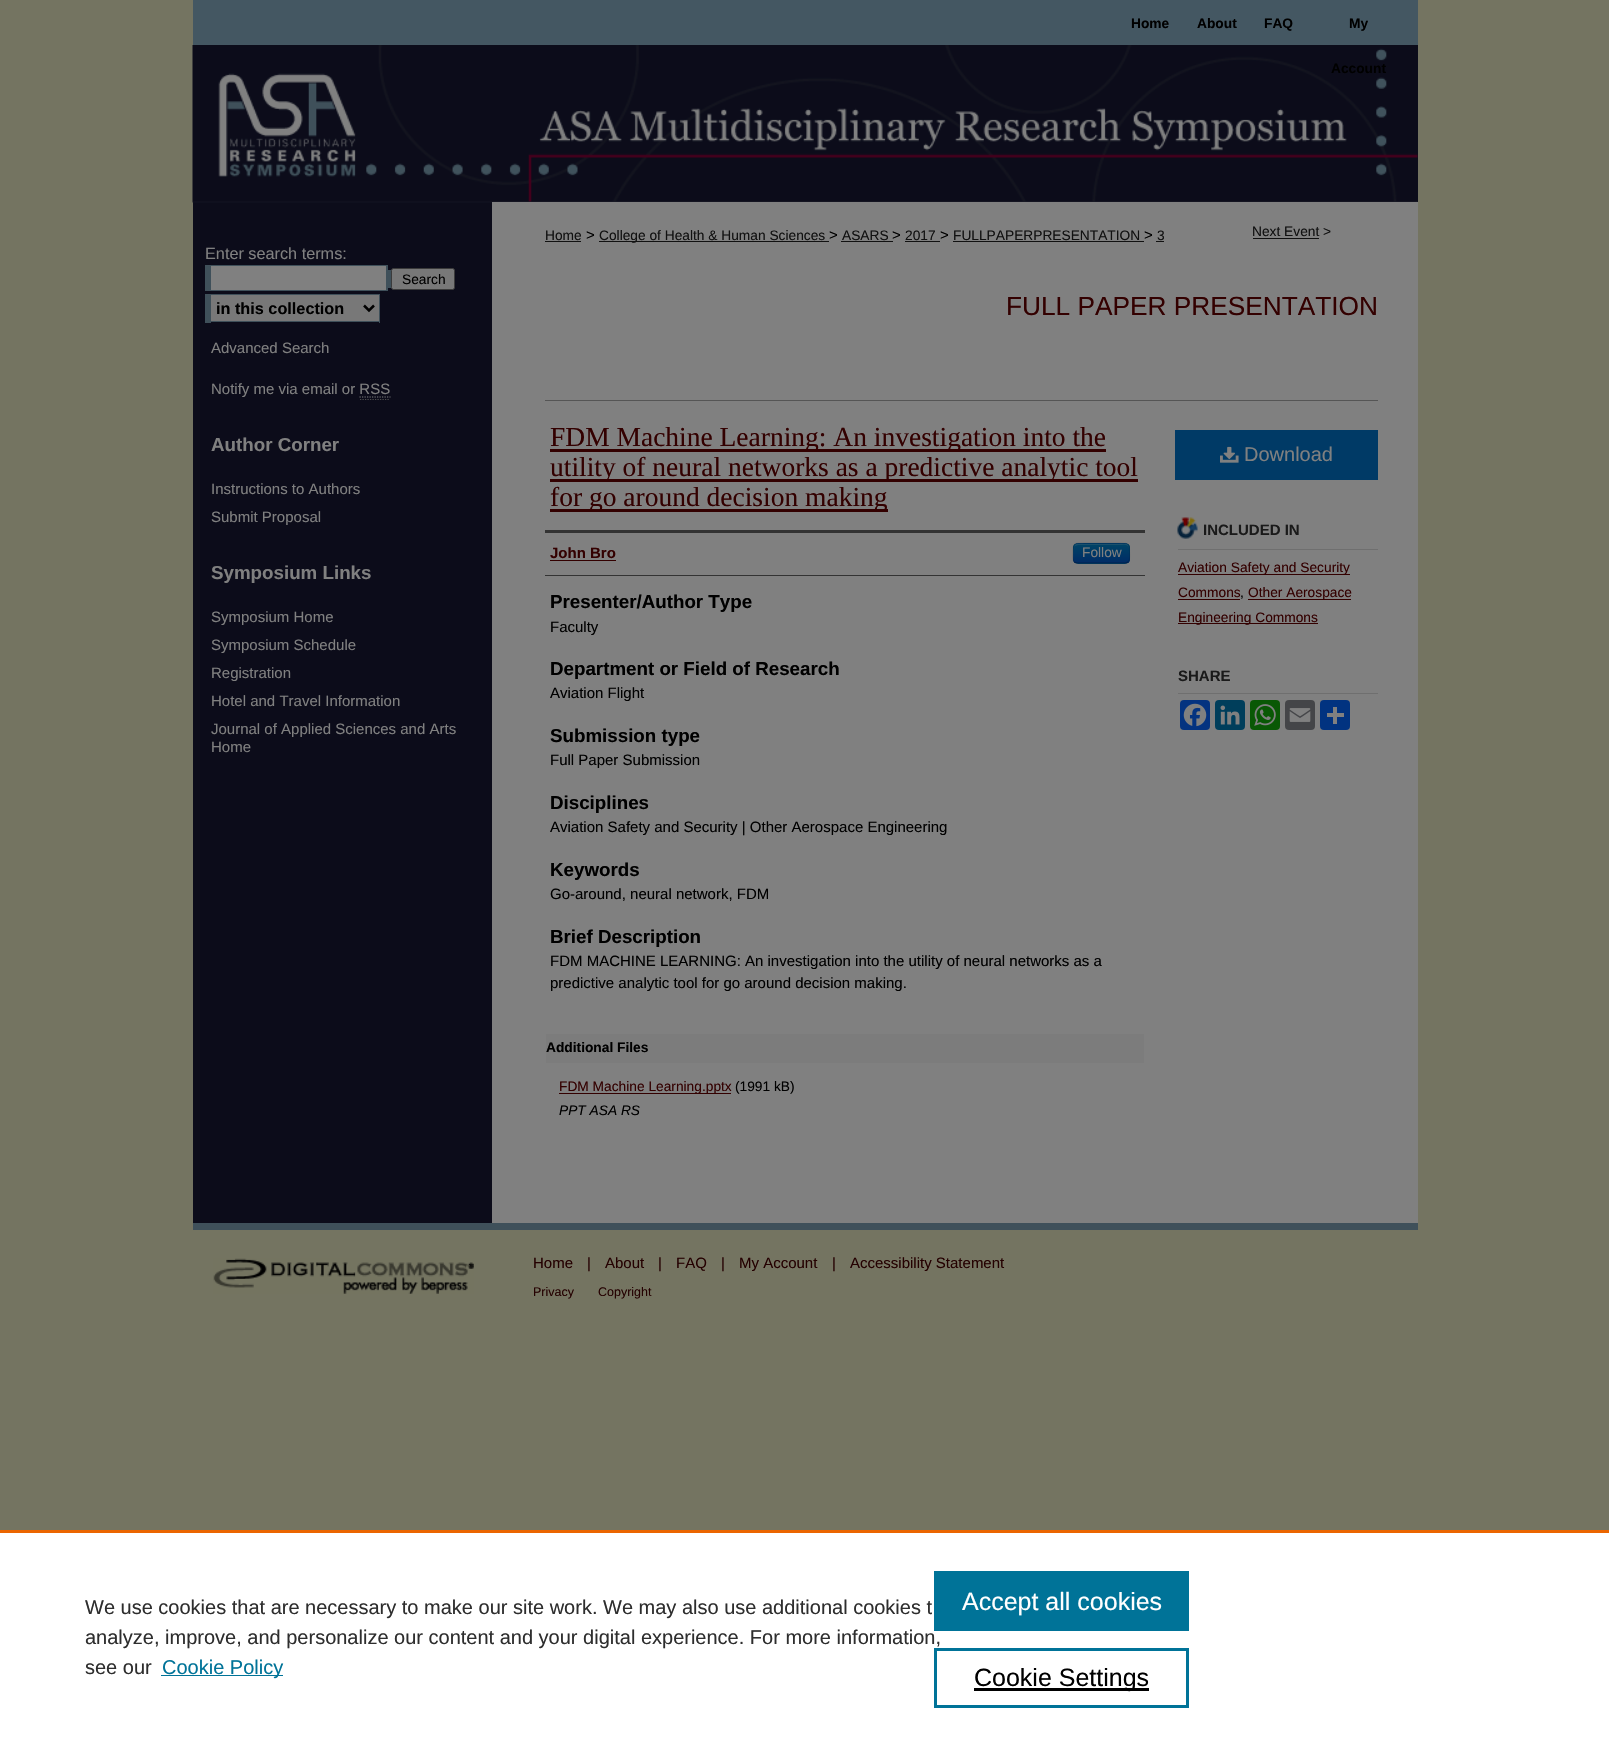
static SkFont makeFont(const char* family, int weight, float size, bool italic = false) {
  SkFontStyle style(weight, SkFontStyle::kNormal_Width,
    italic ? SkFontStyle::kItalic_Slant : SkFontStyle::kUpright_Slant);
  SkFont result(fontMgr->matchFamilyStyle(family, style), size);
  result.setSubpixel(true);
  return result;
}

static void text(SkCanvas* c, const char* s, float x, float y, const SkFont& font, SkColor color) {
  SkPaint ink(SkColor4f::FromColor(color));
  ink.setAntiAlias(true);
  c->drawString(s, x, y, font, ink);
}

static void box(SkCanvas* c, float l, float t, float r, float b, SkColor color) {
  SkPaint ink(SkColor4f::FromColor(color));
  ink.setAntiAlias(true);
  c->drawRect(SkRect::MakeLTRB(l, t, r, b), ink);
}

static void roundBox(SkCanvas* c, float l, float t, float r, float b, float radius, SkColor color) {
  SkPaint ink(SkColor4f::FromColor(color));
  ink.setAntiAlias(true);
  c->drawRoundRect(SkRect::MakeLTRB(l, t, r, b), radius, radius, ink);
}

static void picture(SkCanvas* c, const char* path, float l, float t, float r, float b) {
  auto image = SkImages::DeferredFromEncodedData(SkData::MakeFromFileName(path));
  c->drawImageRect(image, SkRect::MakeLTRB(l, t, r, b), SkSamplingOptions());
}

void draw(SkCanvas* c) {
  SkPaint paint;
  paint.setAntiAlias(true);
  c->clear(0xff747461);
  box(c, 193, 45, 1418, 203, 0xff0c0d1b);
  box(c, 193, 0, 1418, 45, 0xff445762);
  SkFont face1 = makeFont("Liberation Sans", 700, 13.75f);
  text(c, "Home", 1131, 28, face1, 0xff000000);
  text(c, "About", 1197, 28, face1, 0xff000000);
  text(c, "FAQ", 1264, 28, face1, 0xff000000);
  text(c, "My", 1349, 28, face1, 0xff000000);
  picture(c, "img_01.png", 192, 45, 1418, 203);
  text(c, "Account", 1331, 73, face1, 0xff000000);
  box(c, 193, 203, 492, 1223, 0xff0c0c1a);
  box(c, 492, 202, 1418, 1223, 0xff808080);
  SkFont face2 = makeFont("Liberation Sans", 400, 16.25f);
  text(c, "Enter search terms:", 205, 259, face2, 0xff808080);
  box(c, 205, 265, 388, 291, 0xff3f505a);
  box(c, 388, 270, 392, 288, 0xff3f505a);
  box(c, 211, 266, 386, 290, 0xff808080);
  paint.setColor(0xff787878);
  c->drawRoundRect(SkRect::MakeLTRB(391.5f, 268.5f, 454.5f, 289.5f), 2, 2, paint);
  paint.setStyle(SkPaint::kStroke_Style);
  paint.setStrokeWidth(1);
  paint.setColor(0xff3b3b3b);
  c->drawRoundRect(SkRect::MakeLTRB(391.5f, 268.5f, 454.5f, 289.5f), 2, 2, paint);
  SkFont face3 = makeFont("Liberation Sans", 400, 13.75f);
  text(c, "Search", 402, 284, face3, 0xff000000);
  box(c, 211, 295, 379, 321, 0xff787878);
  box(c, 205, 294, 380, 295, 0xff3f505a);
  box(c, 379, 294, 380, 323, 0xff3f505a);
  box(c, 205, 321, 380, 322, 0xff3f505a);
  box(c, 205, 294, 211, 323, 0xff3f505a);
  paint.setStrokeWidth(2.5f);
  paint.setColor(0xff000000);
  c->drawPath(SkPathBuilder().moveTo(364, 305.5f).lineTo(369, 310.5f).lineTo(374, 305.5f).detach(), paint);
  SkFont face4 = makeFont("Liberation Sans", 700, 16.25f);
  text(c, "in this collection", 216, 314, face4, 0xff000000);
  SkFont face5 = makeFont("Liberation Sans", 400, 15);
  text(c, "Advanced Search", 211, 353, face5, 0xff808080);
  text(c, "Notify me via email or RSS", 211, 394, face5, 0xff808080);
  paint.setStrokeWidth(1.2f);
  paint.setColor(0xff4d4d4d);
  paint.setPathEffect(SkDashPathEffect::Make({{1.25f, 1.25f}}, 0));
  c->drawPath(SkPathBuilder().moveTo(360, 399.5f).lineTo(390, 399.5f).detach(), paint);
  paint.setPathEffect(nullptr);
  paint.setColor(0xff808080);
  paint.setPathEffect(SkDashPathEffect::Make({{1.25f, 1.25f}}, 0));
  c->drawPath(SkPathBuilder().moveTo(359.5f, 397).lineTo(390.5f, 397).detach(), paint);
  paint.setPathEffect(nullptr);
  SkFont face6 = makeFont("Liberation Sans", 700, 18.75f);
  text(c, "Author Corner", 211, 451, face6, 0xff808080);
  text(c, "Instructions to Authors", 211, 494, face5, 0xff808080);
  text(c, "Submit Proposal", 211, 522, face5, 0xff808080);
  text(c, "Symposium Links", 211, 579, face6, 0xff808080);
  text(c, "Symposium Home", 211, 622, face5, 0xff808080);
  text(c, "Symposium Schedule", 211, 650, face5, 0xff808080);
  text(c, "Registration", 211, 678, face5, 0xff808080);
  text(c, "Hotel and Travel Information", 211, 706, face5, 0xff808080);
  text(c, "Journal of Applied Sciences and Arts", 211, 734, face5, 0xff808080);
  text(c, "Home", 211, 752, face5, 0xff808080);
  text(c, "Home", 545, 240, face3, 0xff111111);
  box(c, 545, 241, 581, 242, 0xff111111);
  text(c, ">", 586, 240, face5, 0xff000000);
  box(c, 599, 241, 829, 242, 0xff111111);
  text(c, "College of Health & Human Sciences", 599, 240, face3, 0xff111111);
  text(c, ">", 829, 240, face5, 0xff000000);
  text(c, "ASARS", 842, 240, face3, 0xff111111);
  box(c, 841, 241, 893, 242, 0xff111111);
  text(c, ">", 892, 240, face5, 0xff000000);
  text(c, "2017", 905, 240, face3, 0xff111111);
  box(c, 905, 241, 940, 242, 0xff111111);
  text(c, ">", 940, 240, face5, 0xff000000);
  text(c, "FULLPAPERPRESENTATION", 953, 240, face3, 0xff111111);
  box(c, 953, 241, 1144, 242, 0xff111111);
  text(c, ">", 1144, 240, face5, 0xff000000);
  text(c, "3", 1157, 240, face3, 0xff111111);
  box(c, 1156, 241, 1164, 242, 0xff111111);
  text(c, "Next Event >", 1252, 236, face3, 0xff111111);
  box(c, 1253, 238, 1319, 239, 0xff111111);
  SkFont face7 = makeFont("Liberation Sans", 400, 26.25f);
  text(c, "FULL PAPER PRESENTATION", 1006, 315, face7, 0xff330000);
  box(c, 545, 400, 1378, 401, 0xff555555);
  box(c, 550, 449, 1106, 452, 0xff330000);
  SkFont face8 = makeFont("Liberation Serif", 400, 27.5f);
  text(c, "FDM Machine Learning: An investigation into the", 550, 446, face8, 0xff330000);
  box(c, 550, 479, 1138, 482, 0xff330000);
  text(c, "utility of neural networks as a predictive analytic tool", 550, 476, face8, 0xff330000);
  box(c, 550, 509, 888, 512, 0xff330000);
  text(c, "for go around decision making", 550, 506, face8, 0xff330000);
  box(c, 545, 530, 1145, 533, 0xff333333);
  box(c, 545, 575, 1145, 576, 0xff333333);
  SkFont face9 = makeFont("Liberation Sans", 700, 15);
  text(c, "John Bro", 550, 558, face9, 0xff330000);
  box(c, 550, 560, 616, 561, 0xff330000);
  roundBox(c, 1073, 543, 1130, 564, 5, 0xff003a66);
  c->save();
  c->clipPath(SkPathBuilder().moveTo(1078, 543).lineTo(1125, 543).cubicTo(1128, 543, 1130, 545, 1130, 548).lineTo(1130, 559).cubicTo(1130, 562, 1128, 564, 1125, 564).lineTo(1078, 564).cubicTo(1075, 564, 1073, 562, 1073, 559).lineTo(1073, 548).cubicTo(1073, 545, 1075, 543, 1078, 543).close().detach(), true);
  paint.setStyle(SkPaint::kFill_Style);
  {
    const SkColor colors[] = {0xff004466, 0xff002b66};
    const float stops[] = {0, 1};
    const SkPoint ends[] = {{1101, 544}, {1101, 563}};
    paint.setShader(SkGradientShader::MakeLinear(ends, colors, stops, 2, SkTileMode::kClamp));
    paint.setAlpha(255);
  }
  c->drawRect(SkRect::MakeLTRB(1073, 544, 1130, 563), paint);
  c->restore();
  paint.setShader(nullptr);
  paint.setColor(0x33808080);
  c->drawPath(SkPathBuilder().moveTo(1078, 545).lineTo(1122, 545).cubicTo(1129, 544, 1129, 547, 1129, 553).lineTo(1129, 560).lineTo(1129, 552).cubicTo(1129, 542, 1127, 544, 1117, 544).lineTo(1086, 544).cubicTo(1076, 544, 1074, 542, 1074, 552).lineTo(1074, 561).cubicTo(1074, 558, 1073, 548, 1075, 546).close().detach(), paint);
  paint.setStyle(SkPaint::kStroke_Style);
  paint.setColor(0x40000000);
  c->drawPath(SkPathBuilder().moveTo(1128, 562).cubicTo(1127.5f, 562.5f, 1126, 563, 1125, 563).lineTo(1077.5f, 563).cubicTo(1076.5f, 563, 1075, 562.5f, 1074.5f, 562).detach(), paint);
  paint.setColor(0x1a000000);
  c->drawPath(SkPathBuilder().moveTo(1074.5f, 562).cubicTo(1072, 559.5f, 1073, 556, 1073, 553).cubicTo(1073, 542, 1074, 543, 1085.5f, 543).lineTo(1117, 543).cubicTo(1128.5f, 543, 1129.5f, 542, 1129.5f, 553).cubicTo(1129.5f, 556, 1130.5f, 559.5f, 1128, 562).detach(), paint);
  text(c, "Follow", 1082, 557, face3, 0xff808080);
  text(c, "Presenter/Author Type", 550, 608, face6, 0xff000000);
  text(c, "Faculty", 550, 632, face5, 0xff000000);
  text(c, "Department or Field of Research", 550, 675, face6, 0xff000000);
  text(c, "Aviation Flight", 550, 698, face5, 0xff000000);
  text(c, "Submission type", 550, 742, face6, 0xff000000);
  text(c, "Full Paper Submission", 550, 765, face5, 0xff000000);
  text(c, "Disciplines", 550, 809, face6, 0xff000000);
  text(c, "Aviation Safety and Security | Other Aerospace Engineering", 550, 832, face5, 0xff000000);
  text(c, "Keywords", 550, 876, face6, 0xff000000);
  text(c, "Go-around, neural network, FDM", 550, 899, face5, 0xff000000);
  text(c, "Brief Description", 550, 943, face6, 0xff000000);
  text(c, "FDM MACHINE LEARNING: An investigation into the utility of neural networks as a", 550, 966, face5, 0xff000000);
  text(c, "predictive analytic tool for go around decision making.", 550, 988, face5, 0xff000000);
  box(c, 546, 1034, 1144, 1063, 0xff7c7c7c);
  text(c, "Additional Files", 546, 1052, face1, 0xff000000);
  box(c, 559, 1093, 731, 1094, 0xff330000);
  text(c, "FDM Machine Learning.pptx", 559, 1091, face3, 0xff330000);
  text(c, "(1991 kB)", 735, 1091, face3, 0xff000000);
  SkFont face10 = makeFont("Liberation Sans", 400, 13.75f, true);
  text(c, "PPT ASA RS", 559, 1115, face10, 0xff000000);
  box(c, 1175, 430, 1378, 480, 0xff003a66);
  picture(c, "img_02.png", 1220, 446, 1239, 463);
  SkFont face11 = makeFont("Liberation Sans", 400, 20);
  text(c, "Download", 1244, 461, face11, 0xff808080);
  picture(c, "img_03.png", 1177, 517, 1198, 539);
  box(c, 1178, 549, 1378, 550, 0xff6f6f6f);
  text(c, "INCLUDED IN", 1203, 535, face9, 0xff1a1a1a);
  box(c, 1178, 574, 1350, 575, 0xff330000);
  text(c, "Aviation Safety and Security", 1178, 572, face3, 0xff330000);
  text(c, "Commons", 1178, 597, face3, 0xff330000);
  box(c, 1178, 599, 1240, 600, 0xff330000);
  text(c, ",", 1240, 597, face3, 0xff000000);
  box(c, 1248, 599, 1351, 600, 0xff330000);
  text(c, "Other Aerospace", 1248, 597, face3, 0xff330000);
  box(c, 1178, 623, 1318, 624, 0xff330000);
  text(c, "Engineering Commons", 1178, 622, face3, 0xff330000);
  box(c, 1178, 693, 1378, 694, 0xff6f6f6f);
  text(c, "SHARE", 1178, 681, face9, 0xff1a1a1a);
  roundBox(c, 1180, 700, 1210, 730, 4, 0xff043380);
  picture(c, "img_04.png", 1183, 703, 1207, 727);
  roundBox(c, 1215, 700, 1245, 730, 4, 0xff003e5b);
  picture(c, "img_05.png", 1220, 705, 1240, 725);
  roundBox(c, 1250, 700, 1280, 730, 4, 0xff095805);
  picture(c, "img_06.png", 1254, 704, 1276, 726);
  roundBox(c, 1285, 700, 1315, 730, 4, 0xff444548);
  picture(c, "img_07.png", 1289, 708, 1311, 722);
  roundBox(c, 1320, 700, 1350, 730, 4, 0xff013380);
  box(c, 1333, 707, 1337, 724, 0xff808080);
  box(c, 1327, 713, 1344, 717, 0xff808080);
  box(c, 193, 1223, 1418, 1230, 0xff3f505a);
  picture(c, "img_08.png", 213, 1258, 474, 1294);
  text(c, "Home", 533, 1268, face5, 0xff240000);
  text(c, "|", 587, 1268, face5, 0xff240000);
  text(c, "About", 605, 1268, face5, 0xff240000);
  text(c, "|", 658, 1268, face5, 0xff240000);
  text(c, "FAQ", 676, 1268, face5, 0xff240000);
  text(c, "|", 721, 1268, face5, 0xff240000);
  text(c, "My Account", 739, 1268, face5, 0xff240000);
  text(c, "|", 832, 1268, face5, 0xff240000);
  text(c, "Accessibility Statement", 850, 1268, face5, 0xff240000);
  SkFont face12 = makeFont("Liberation Sans", 400, 12.5f);
  text(c, "Privacy", 533, 1296, face12, 0xff240000);
  text(c, "Copyright", 598, 1296, face12, 0xff240000);
  box(c, 0, 1533, 1609, 1742, 0xffffffff);
  box(c, 0, 1530, 1609, 1533, 0xffeb6500);
  text(c, "We use cookies that are necessary to make our site work. We may also use additional cookies t", 85, 1614, face11, 0xff2e2e2e);
  text(c, "analyze, improve, and personalize our content and your digital experience. For more information,", 85, 1644, face11, 0xff2e2e2e);
  text(c, "see our", 85, 1674, face11, 0xff2e2e2e);
  box(c, 161, 1675, 283, 1676, 0xff007398);
  text(c, "Cookie Policy", 162, 1674, face11, 0xff007398);
  box(c, 934, 1571, 1189, 1631, 0xff007398);
  SkFont face13 = makeFont("Liberation Sans", 400, 25);
  text(c, "Accept all cookies", 962, 1610, face13, 0xffffffff);
  paint.setStrokeWidth(3);
  paint.setColor(0xff007398);
  c->drawRect(SkRect::MakeLTRB(935.5f, 1649.5f, 1187.5f, 1706.5f), paint);
  box(c, 974, 1688, 1149, 1691, 0xff000000);
  text(c, "Cookie Settings", 974, 1686, face13, 0xff000000);
}
